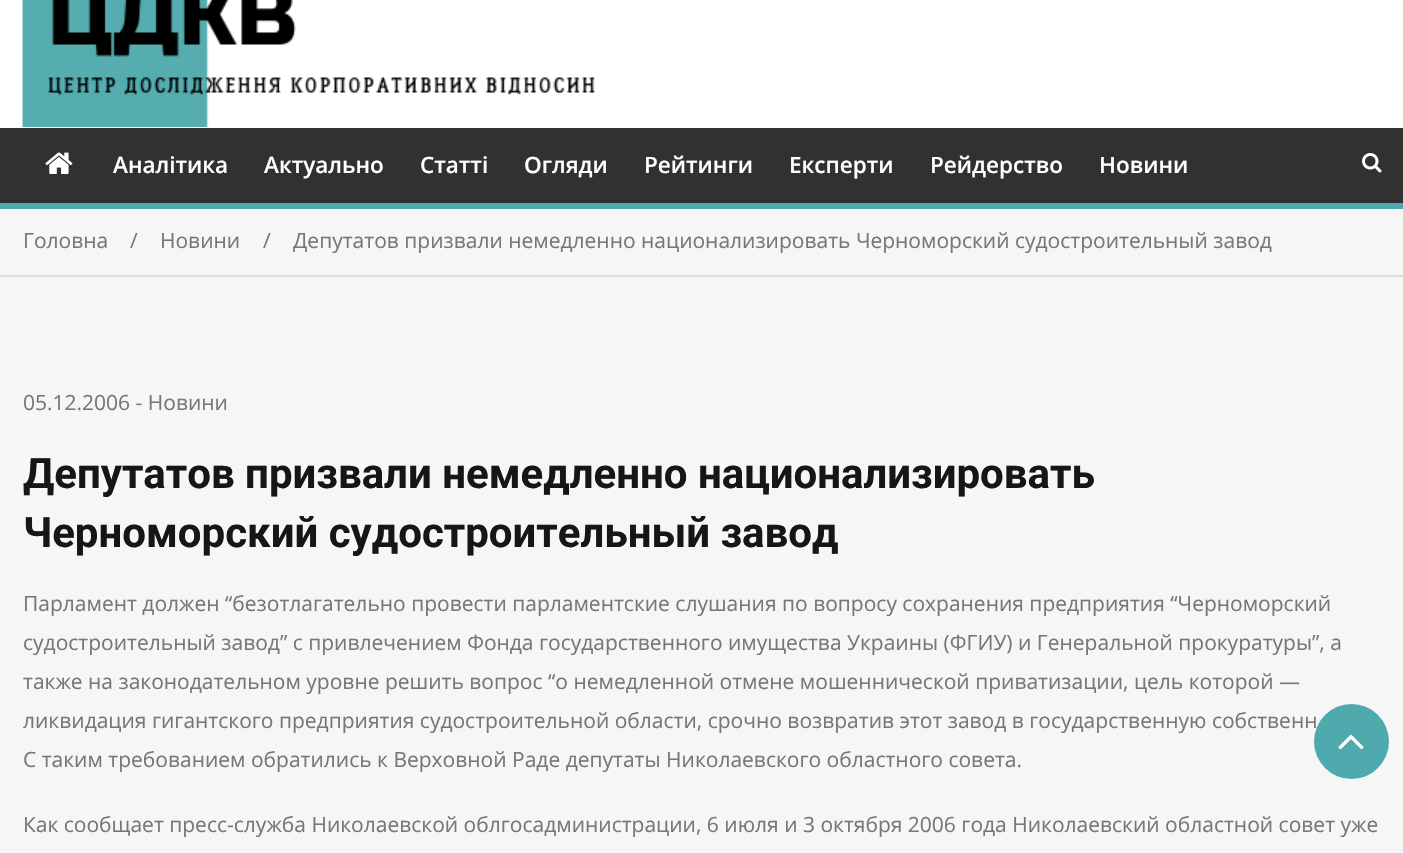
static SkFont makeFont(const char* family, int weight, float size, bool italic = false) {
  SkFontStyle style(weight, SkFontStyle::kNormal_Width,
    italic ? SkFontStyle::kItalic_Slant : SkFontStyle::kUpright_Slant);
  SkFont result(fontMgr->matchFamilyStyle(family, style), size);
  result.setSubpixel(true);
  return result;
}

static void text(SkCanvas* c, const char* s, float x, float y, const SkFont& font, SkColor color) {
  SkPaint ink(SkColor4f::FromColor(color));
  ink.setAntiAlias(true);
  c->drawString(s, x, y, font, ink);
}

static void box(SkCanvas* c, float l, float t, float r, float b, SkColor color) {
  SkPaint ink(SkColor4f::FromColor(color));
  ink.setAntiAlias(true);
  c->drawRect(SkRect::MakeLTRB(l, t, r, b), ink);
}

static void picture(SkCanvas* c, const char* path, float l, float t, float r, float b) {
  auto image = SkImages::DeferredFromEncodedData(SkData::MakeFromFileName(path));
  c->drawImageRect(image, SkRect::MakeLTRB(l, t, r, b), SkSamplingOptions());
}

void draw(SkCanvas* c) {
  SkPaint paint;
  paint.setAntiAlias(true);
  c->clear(0xfff6f6f6);
  box(c, 0, 0, 1403, 128, 0xffffffff);
  picture(c, "img_01.png", 22, 0, 596, 127);
  box(c, 0, 128, 1403, 203, 0xff313131);
  box(c, 0, 203, 1403, 209, 0xff4faaad);
  picture(c, "img_02.png", 45, 152, 73, 174);
  SkFont face1 = makeFont("Open Sans", 600, 22.5f);
  text(c, "Аналітика", 113, 173, face1, 0xffffffff);
  text(c, "Актуально", 264, 173, face1, 0xffffffff);
  text(c, "Статті", 420, 173, face1, 0xffffffff);
  text(c, "Огляди", 524, 173, face1, 0xffffffff);
  text(c, "Рейтинги", 644, 173, face1, 0xffffffff);
  text(c, "Експерти", 789, 173, face1, 0xffffffff);
  text(c, "Рейдерство", 930, 173, face1, 0xffffffff);
  text(c, "Новини", 1099, 173, face1, 0xffffffff);
  picture(c, "img_03.png", 1362, 153, 1382, 173);
  box(c, 0, 275, 1403, 277, 0xffdddddd);
  SkFont face2 = makeFont("Open Sans", 400, 21);
  text(c, "Головна", 23, 248, face2, 0xff777777);
  text(c, "/", 130, 248, face2, 0xff777777);
  text(c, "Новини", 160, 248, face2, 0xff777777);
  text(c, "/", 263, 248, face2, 0xff777777);
  text(c, "Депутатов призвали немедленно национализировать Черноморский судостроительный завод", 293, 248, face2, 0xff777777);
  text(c, "05.12.2006 - Новини", 23, 410, face2, 0xff777777);
  SkFont face3 = makeFont("Roboto", 700, 42);
  text(c, "Депутатов призвали немедленно национализировать", 23, 488, face3, 0xff161616);
  text(c, "Черноморский судостроительный завод", 23, 547, face3, 0xff161616);
  text(c, "Парламент должен “безотлагательно провести парламентские слушания по вопросу сохранения предприятия “Черноморский", 23, 611, face2, 0xff777777);
  text(c, "судостроительный завод” с привлечением Фонда государственного имущества Украины (ФГИУ) и Генеральной прокуратуры”, а", 23, 650, face2, 0xff777777);
  text(c, "также на законодательном уровне решить вопрос “о немедленной отмене мошеннической приватизации, цель которой —", 23, 689, face2, 0xff777777);
  text(c, "ликвидация гигантского предприятия судостроительной области, срочно возвратив этот завод в государственную собственн", 23, 728, face2, 0xff777777);
  text(c, "С таким требованием обратились к Верховной Раде депутаты Николаевского областного совета.", 23, 767, face2, 0xff777777);
  text(c, "Как сообщает пресс-служба Николаевской облгосадминистрации, 6 июля и 3 октября 2006 года Николаевский областной совет уже", 23, 832, face2, 0xff777777);
  paint.setColor(0xff4faaad);
  c->drawCircle(1351.5f, 741.5f, 37.5f, paint);
  picture(c, "img_04.png", 1338, 734, 1364, 750);
}
